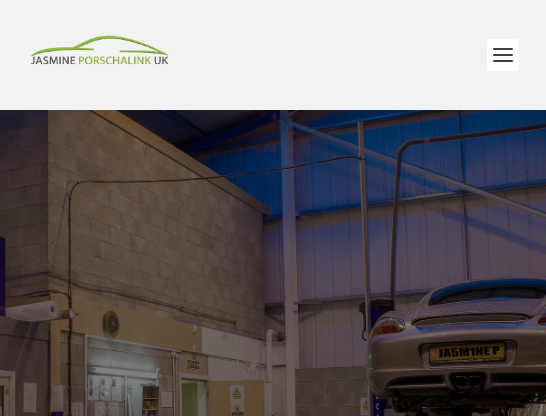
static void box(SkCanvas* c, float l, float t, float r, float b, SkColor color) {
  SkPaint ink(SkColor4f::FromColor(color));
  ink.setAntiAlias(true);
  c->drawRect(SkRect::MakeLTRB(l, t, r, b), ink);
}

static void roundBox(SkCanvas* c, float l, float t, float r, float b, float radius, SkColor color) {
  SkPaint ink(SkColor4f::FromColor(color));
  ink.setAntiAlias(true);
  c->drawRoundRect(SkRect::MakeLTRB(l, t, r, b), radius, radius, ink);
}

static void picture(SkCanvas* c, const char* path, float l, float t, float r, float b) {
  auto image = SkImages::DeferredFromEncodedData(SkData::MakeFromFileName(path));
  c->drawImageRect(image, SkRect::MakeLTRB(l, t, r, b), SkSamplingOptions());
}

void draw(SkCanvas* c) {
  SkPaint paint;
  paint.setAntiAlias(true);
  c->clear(0xffffffff);
  box(c, 0, 0, 546, 110, 0xfff2f2f2);
  picture(c, "img_01.png", 31, 35, 169, 65);
  roundBox(c, 487, 39, 519, 71, 3, 0xffffffff);
  roundBox(c, 493, 48, 513, 50, 1, 0xff404040);
  roundBox(c, 493, 54, 513, 56, 1, 0xff404040);
  roundBox(c, 493, 60, 513, 62, 1, 0xff404040);
  picture(c, "img_02.png", 0, 110, 546, 416);
}
